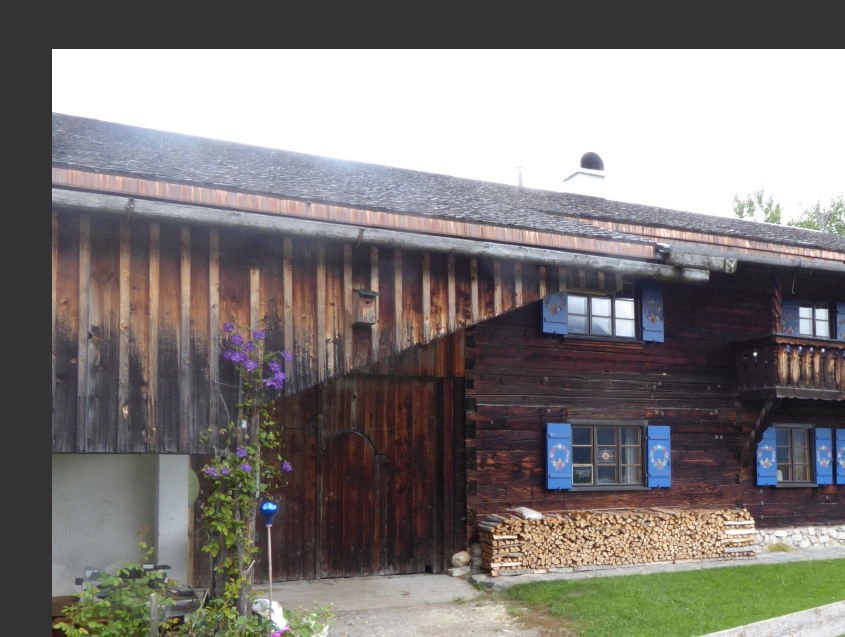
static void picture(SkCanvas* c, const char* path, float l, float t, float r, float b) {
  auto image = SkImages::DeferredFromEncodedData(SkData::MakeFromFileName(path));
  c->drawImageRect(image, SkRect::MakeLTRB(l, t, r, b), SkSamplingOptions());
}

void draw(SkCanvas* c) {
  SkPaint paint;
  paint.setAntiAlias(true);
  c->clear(0xff333333);
  picture(c, "img_01.png", 52, 49, 845, 637);
}
